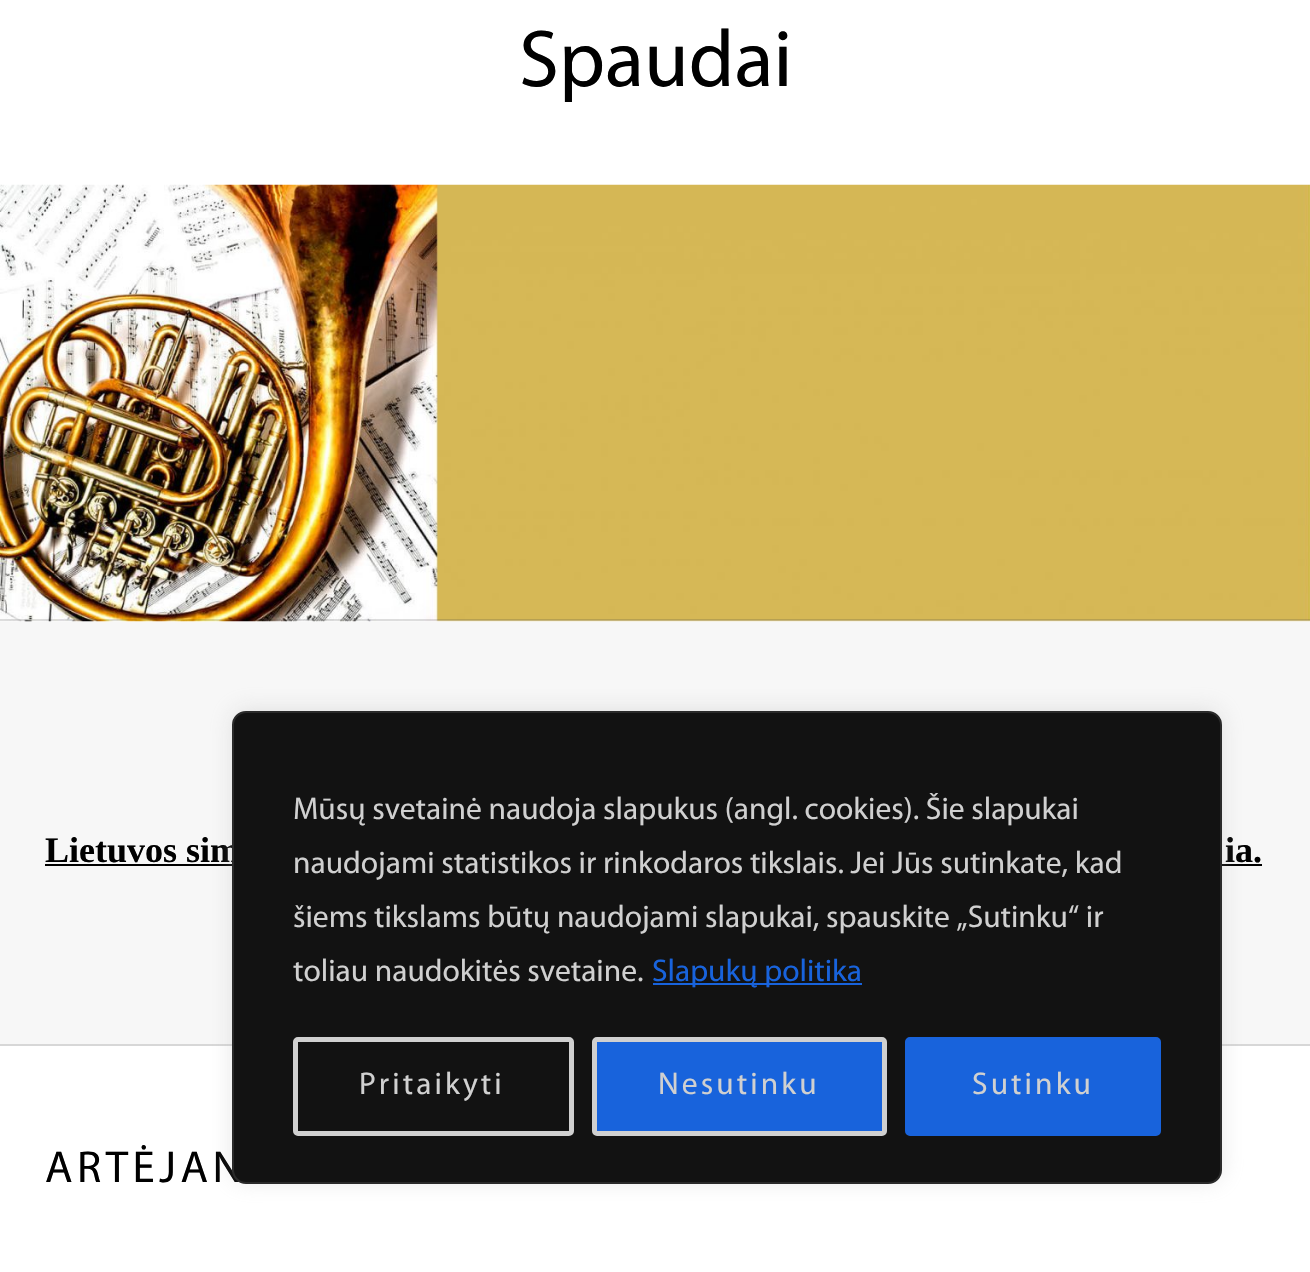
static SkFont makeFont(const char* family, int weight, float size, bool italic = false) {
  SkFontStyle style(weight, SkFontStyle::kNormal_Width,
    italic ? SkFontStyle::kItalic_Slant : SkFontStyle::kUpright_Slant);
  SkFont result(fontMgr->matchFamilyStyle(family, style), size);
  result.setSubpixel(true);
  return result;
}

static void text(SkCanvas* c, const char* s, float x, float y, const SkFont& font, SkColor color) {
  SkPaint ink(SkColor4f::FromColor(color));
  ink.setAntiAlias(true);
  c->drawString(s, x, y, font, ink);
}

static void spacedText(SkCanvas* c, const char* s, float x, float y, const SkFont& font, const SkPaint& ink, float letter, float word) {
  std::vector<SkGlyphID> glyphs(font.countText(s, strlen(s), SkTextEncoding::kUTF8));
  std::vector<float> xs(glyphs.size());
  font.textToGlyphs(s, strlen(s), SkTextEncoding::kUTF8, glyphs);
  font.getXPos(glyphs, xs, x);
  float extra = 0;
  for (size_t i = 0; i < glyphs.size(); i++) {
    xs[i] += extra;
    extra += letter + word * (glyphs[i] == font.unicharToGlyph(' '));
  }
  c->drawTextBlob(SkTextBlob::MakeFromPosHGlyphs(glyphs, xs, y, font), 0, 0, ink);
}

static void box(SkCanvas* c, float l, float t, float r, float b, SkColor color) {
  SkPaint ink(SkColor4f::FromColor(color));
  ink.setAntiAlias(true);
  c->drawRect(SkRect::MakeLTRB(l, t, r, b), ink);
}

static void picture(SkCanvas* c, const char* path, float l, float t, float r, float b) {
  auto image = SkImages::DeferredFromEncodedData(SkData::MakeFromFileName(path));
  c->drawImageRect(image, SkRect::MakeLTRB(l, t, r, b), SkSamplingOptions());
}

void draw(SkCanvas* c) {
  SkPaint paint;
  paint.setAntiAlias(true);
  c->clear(0xfff7f7f7);
  box(c, 0, 0, 1310, 185, 0xffffffff);
  SkFont face1 = makeFont("Myriad", 400, 81);
  text(c, "Spaudai", 519, 86, face1, 0xff000000);
  picture(c, "img_01.png", 0, 184, 1310, 622);
  box(c, 0, 619, 1310, 621, 0x21000000);
  SkFont face2 = makeFont("Liberation Serif", 700, 36);
  text(c, "Lietuvos sim", 45, 862, face2, 0xff000000);
  box(c, 45, 864, 1262, 866, 0xff000000);
  text(c, "ia.", 1225, 862, face2, 0xff000000);
  paint.setColor(0xffd7d7d7);
  c->drawPath(SkPathBuilder().moveTo(0, 1044).lineTo(0, 1046).lineTo(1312, 1046).lineTo(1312, 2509).lineTo(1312, 1044).close().detach(), paint);
  box(c, 0, 1046, 1310, 1272, 0xffffffff);
  SkFont face3 = makeFont("Myriad", 400, 45);
  paint.setColor(0xff000000);
  spacedText(c, "ARTĖJAN", 45, 1182, face3, paint, 4.5f, 0);
  paint.setColor(0x4dacabab);
  paint.setMaskFilter(SkMaskFilter::MakeBlur(kNormal_SkBlurStyle, 11));
  c->drawRoundRect(SkRect::MakeLTRB(232, 709, 1222, 1181), 14, 14, paint);
  paint.setMaskFilter(nullptr);
  paint.setColor(0xff121212);
  c->drawRoundRect(SkRect::MakeLTRB(233, 712, 1221, 1183), 13, 13, paint);
  paint.setStyle(SkPaint::kStroke_Style);
  paint.setStrokeWidth(2);
  paint.setColor(0xff2a2a2a);
  c->drawRoundRect(SkRect::MakeLTRB(233, 712, 1221, 1183), 13, 13, paint);
  SkFont face4 = makeFont("Myriad", 400, 31.5f);
  text(c, "Mūsų svetainė naudoja slapukus (angl. cookies). Šie slapukai", 293, 819, face4, 0xffd0d0d0);
  text(c, "naudojami statistikos ir rinkodaros tikslais. Jei Jūs sutinkate, kad", 293, 873, face4, 0xffd0d0d0);
  text(c, "šiems tikslams būtų naudojami slapukai, spauskite „Sutinku“ ir", 293, 927, face4, 0xffd0d0d0);
  text(c, "toliau naudokitės svetaine.", 293, 981, face4, 0xffd0d0d0);
  box(c, 653, 983, 862, 985, 0xff1863dc);
  text(c, "Slapukų politika", 652, 981, face4, 0xff1863dc);
  paint.setStrokeWidth(5);
  paint.setColor(0xffd0d0d0);
  c->drawRoundRect(SkRect::MakeLTRB(295.5f, 1039.5f, 571.5f, 1133.5f), 2.5f, 2.5f, paint);
  paint.setStyle(SkPaint::kFill_Style);
  spacedText(c, "Pritaikyti", 359, 1094, face4, paint, 3.1f, 0);
  paint.setColor(0xff1863dc);
  c->drawRoundRect(SkRect::MakeLTRB(594.5f, 1039.5f, 884.5f, 1133.5f), 2.5f, 2.5f, paint);
  paint.setStyle(SkPaint::kStroke_Style);
  paint.setColor(0xffd0d0d0);
  c->drawRoundRect(SkRect::MakeLTRB(594.5f, 1039.5f, 884.5f, 1133.5f), 2.5f, 2.5f, paint);
  paint.setStyle(SkPaint::kFill_Style);
  spacedText(c, "Nesutinku", 658, 1094, face4, paint, 3.1f, 0);
  paint.setColor(0xff1863dc);
  c->drawRoundRect(SkRect::MakeLTRB(907.5f, 1039.5f, 1158.5f, 1133.5f), 2.5f, 2.5f, paint);
  paint.setStyle(SkPaint::kStroke_Style);
  c->drawRoundRect(SkRect::MakeLTRB(907.5f, 1039.5f, 1158.5f, 1133.5f), 2.5f, 2.5f, paint);
  paint.setStyle(SkPaint::kFill_Style);
  paint.setColor(0xffd0d0d0);
  spacedText(c, "Sutinku", 972, 1094, face4, paint, 3.1f, 0);
}
